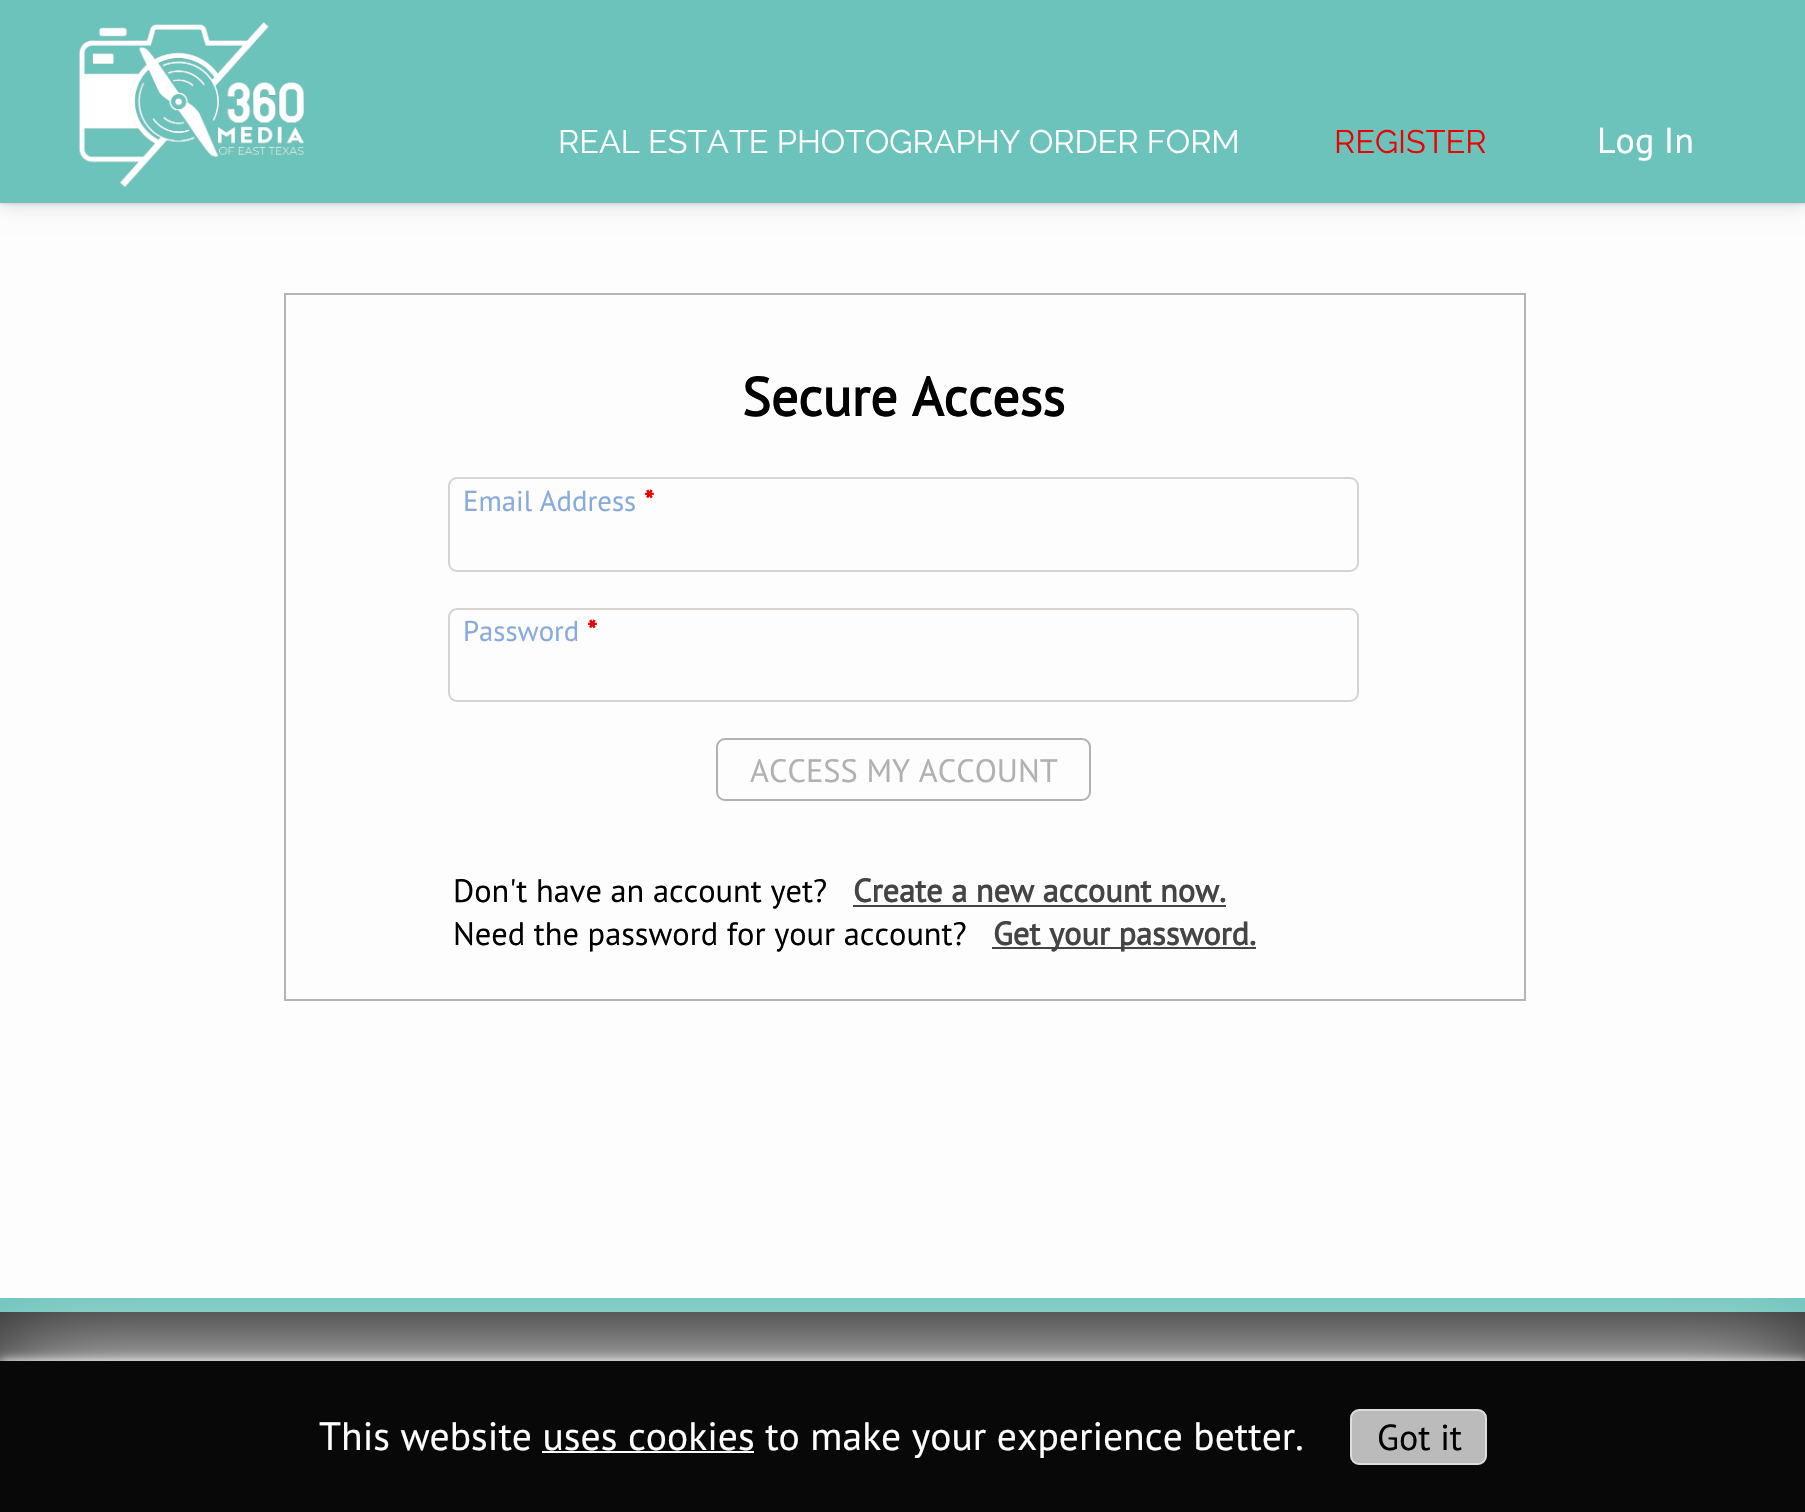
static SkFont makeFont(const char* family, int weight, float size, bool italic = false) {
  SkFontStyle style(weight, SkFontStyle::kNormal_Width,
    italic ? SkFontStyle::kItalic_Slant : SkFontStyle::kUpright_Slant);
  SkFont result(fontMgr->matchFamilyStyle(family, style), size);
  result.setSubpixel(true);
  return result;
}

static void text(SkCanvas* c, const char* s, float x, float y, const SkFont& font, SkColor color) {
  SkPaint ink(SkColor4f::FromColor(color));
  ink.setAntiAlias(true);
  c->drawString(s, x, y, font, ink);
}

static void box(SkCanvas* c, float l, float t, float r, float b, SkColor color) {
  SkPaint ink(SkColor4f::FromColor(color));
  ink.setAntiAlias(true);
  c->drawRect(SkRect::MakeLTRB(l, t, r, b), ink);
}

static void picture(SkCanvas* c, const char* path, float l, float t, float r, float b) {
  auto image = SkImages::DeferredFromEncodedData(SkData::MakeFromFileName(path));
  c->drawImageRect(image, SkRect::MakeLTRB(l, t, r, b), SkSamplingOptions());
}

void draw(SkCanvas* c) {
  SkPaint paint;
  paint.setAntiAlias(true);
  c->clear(0xfffdfdfd);
  paint.setColor(0x33000000);
  paint.setMaskFilter(SkMaskFilter::MakeBlur(kNormal_SkBlurStyle, 2));
  c->drawRect(SkRect::MakeLTRB(0, 0, 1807, 203), paint);
  paint.setMaskFilter(nullptr);
  paint.setColor(0x26000000);
  paint.setMaskFilter(SkMaskFilter::MakeBlur(kNormal_SkBlurStyle, 11));
  c->drawRect(SkRect::MakeLTRB(0, 0, 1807, 203), paint);
  paint.setMaskFilter(nullptr);
  box(c, 0, 0, 1805, 203, 0xff6bc3bb);
  picture(c, "img_01.png", 78, 22, 304, 187);
  SkFont face1 = makeFont("Raleway", 400, 32.4f);
  text(c, "REAL ESTATE PHOTOGRAPHY ORDER FORM", 558, 153, face1, 0xffffffff);
  text(c, "REGISTER", 1334, 153, face1, 0xffee0000);
  SkFont face2 = makeFont("PT Sans", 400, 36);
  text(c, "Log In", 1597, 153, face2, 0xffffffff);
  paint.setStyle(SkPaint::kStroke_Style);
  paint.setStrokeWidth(2);
  paint.setColor(0xffb7b3b0);
  c->drawRect(SkRect::MakeLTRB(285, 294, 1525, 1000), paint);
  SkFont face3 = makeFont("PT Sans", 700, 54);
  text(c, "Secure Access", 742, 416, face3, 0xff000000);
  paint.setColor(0xffd7d3d0);
  c->drawRoundRect(SkRect::MakeLTRB(449, 478, 1358, 571), 8, 8, paint);
  SkFont face4 = makeFont("PT Sans", 400, 28.75f);
  text(c, "Email Address", 463, 511, face4, 0xff88aadd);
  SkFont face5 = makeFont("PT Sans", 700, 28.75f);
  text(c, "*", 644, 511, face5, 0xffee0000);
  c->drawRoundRect(SkRect::MakeLTRB(449, 609, 1358, 701), 8, 8, paint);
  text(c, "Password", 463, 641, face4, 0xff88aadd);
  text(c, "*", 587, 641, face5, 0xffee0000);
  paint.setColor(0xffb1b1b1);
  c->drawRoundRect(SkRect::MakeLTRB(717, 739, 1090, 800), 8, 8, paint);
  SkFont face6 = makeFont("PT Sans", 400, 32.4f);
  text(c, "ACCESS MY ACCOUNT", 750, 782, face6, 0xffb1b1b1);
  text(c, "Don't have an account yet?", 453, 902, face6, 0xff000000);
  SkFont face7 = makeFont("PT Sans", 700, 32.4f);
  text(c, "Create a new account now.", 853, 902, face7, 0xff444444);
  box(c, 853, 905, 1226, 907, 0xff444444);
  text(c, "Need the password for your account?", 453, 945, face6, 0xff000000);
  box(c, 992, 947, 1256, 949, 0xff444444);
  text(c, "Get your password.", 993, 945, face7, 0xff444444);
  box(c, 0, 1312, 1805, 1512, 0xff333333);
  box(c, 0, 1298, 1805, 1312, 0xff6bc3bb);
  c->save();
  c->clipPath(SkPathBuilder(SkPathFillType::kEvenOdd).moveTo(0, 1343).lineTo(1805, 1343).lineTo(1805, 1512).lineTo(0, 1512).close().moveTo(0, 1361).lineTo(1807, 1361).lineTo(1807, 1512).lineTo(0, 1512).close().detach(), true);
  paint.setStyle(SkPaint::kFill_Style);
  paint.setColor(0xffffffff);
  paint.setMaskFilter(SkMaskFilter::MakeBlur(kNormal_SkBlurStyle, 5.5f));
  c->drawRect(SkRect::MakeLTRB(0, 1361, 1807, 1512), paint);
  paint.setMaskFilter(nullptr);
  c->restore();
  c->save();
  c->clipPath(SkPathBuilder(SkPathFillType::kEvenOdd).moveTo(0, 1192).lineTo(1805, 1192).lineTo(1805, 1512).lineTo(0, 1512).close().moveTo(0, 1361).lineTo(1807, 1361).lineTo(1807, 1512).lineTo(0, 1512).close().detach(), true);
  paint.setMaskFilter(SkMaskFilter::MakeBlur(kNormal_SkBlurStyle, 56));
  c->drawRect(SkRect::MakeLTRB(0, 1361, 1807, 1512), paint);
  paint.setMaskFilter(nullptr);
  c->restore();
  box(c, 0, 1361, 1805, 1512, 0xd9000000);
  SkFont face8 = makeFont("PT Sans", 400, 39.6f);
  text(c, "This website uses cookies to make your experience better.", 319, 1450, face8, 0xffffffff);
  paint.setColor(0xffbbbbbb);
  c->drawRoundRect(SkRect::MakeLTRB(1351, 1410, 1486, 1464), 8, 8, paint);
  paint.setStyle(SkPaint::kStroke_Style);
  paint.setColor(0xffdddddd);
  c->drawRoundRect(SkRect::MakeLTRB(1351, 1410, 1486, 1464), 8, 8, paint);
  text(c, "Got it", 1377, 1450, face2, 0xff000000);
  box(c, 542, 1451, 754, 1453, 0xffffffff);
}
